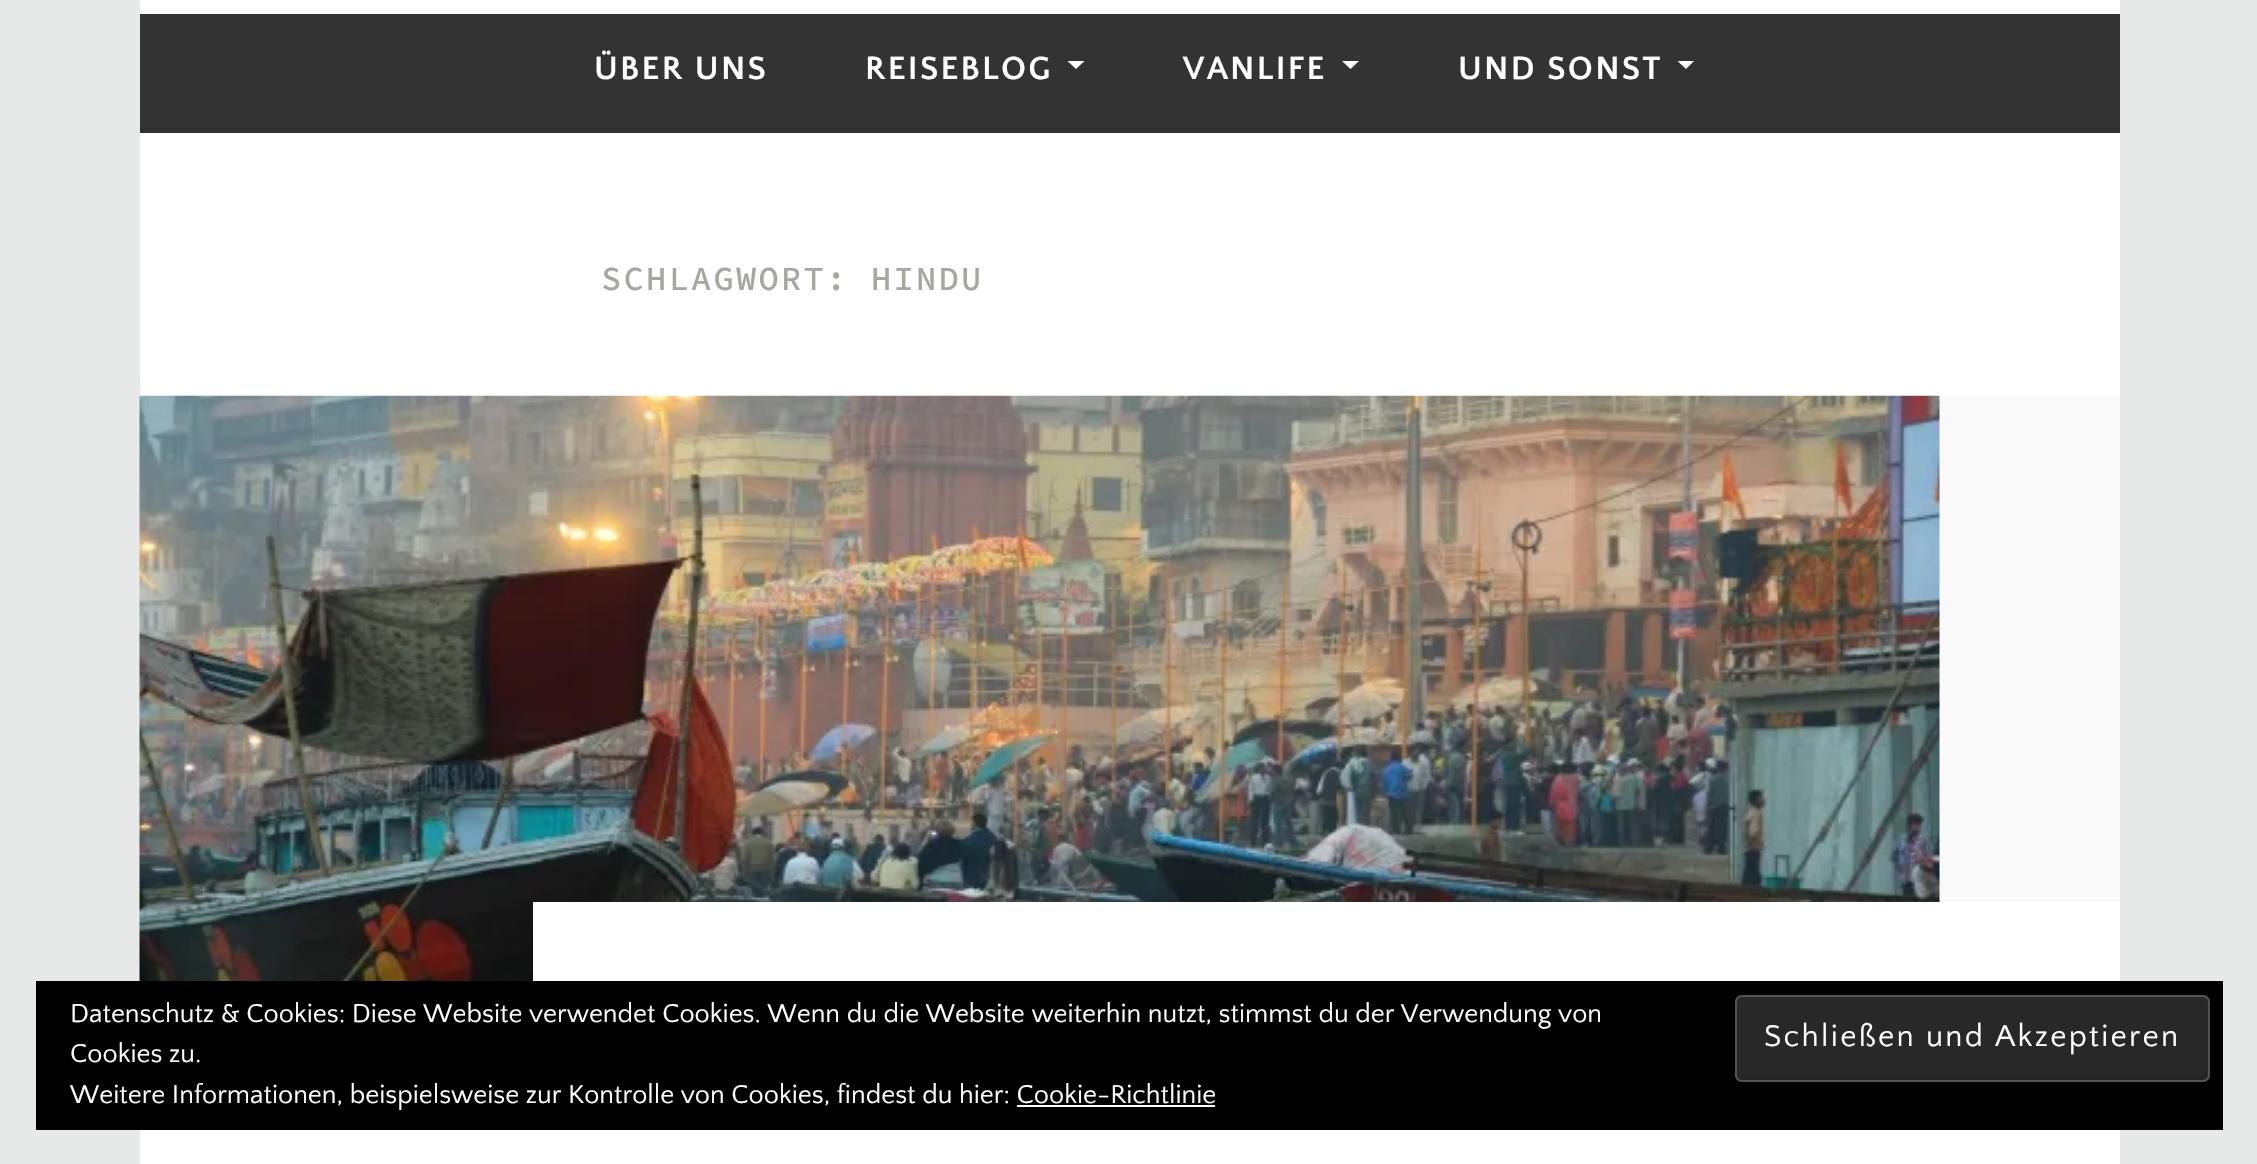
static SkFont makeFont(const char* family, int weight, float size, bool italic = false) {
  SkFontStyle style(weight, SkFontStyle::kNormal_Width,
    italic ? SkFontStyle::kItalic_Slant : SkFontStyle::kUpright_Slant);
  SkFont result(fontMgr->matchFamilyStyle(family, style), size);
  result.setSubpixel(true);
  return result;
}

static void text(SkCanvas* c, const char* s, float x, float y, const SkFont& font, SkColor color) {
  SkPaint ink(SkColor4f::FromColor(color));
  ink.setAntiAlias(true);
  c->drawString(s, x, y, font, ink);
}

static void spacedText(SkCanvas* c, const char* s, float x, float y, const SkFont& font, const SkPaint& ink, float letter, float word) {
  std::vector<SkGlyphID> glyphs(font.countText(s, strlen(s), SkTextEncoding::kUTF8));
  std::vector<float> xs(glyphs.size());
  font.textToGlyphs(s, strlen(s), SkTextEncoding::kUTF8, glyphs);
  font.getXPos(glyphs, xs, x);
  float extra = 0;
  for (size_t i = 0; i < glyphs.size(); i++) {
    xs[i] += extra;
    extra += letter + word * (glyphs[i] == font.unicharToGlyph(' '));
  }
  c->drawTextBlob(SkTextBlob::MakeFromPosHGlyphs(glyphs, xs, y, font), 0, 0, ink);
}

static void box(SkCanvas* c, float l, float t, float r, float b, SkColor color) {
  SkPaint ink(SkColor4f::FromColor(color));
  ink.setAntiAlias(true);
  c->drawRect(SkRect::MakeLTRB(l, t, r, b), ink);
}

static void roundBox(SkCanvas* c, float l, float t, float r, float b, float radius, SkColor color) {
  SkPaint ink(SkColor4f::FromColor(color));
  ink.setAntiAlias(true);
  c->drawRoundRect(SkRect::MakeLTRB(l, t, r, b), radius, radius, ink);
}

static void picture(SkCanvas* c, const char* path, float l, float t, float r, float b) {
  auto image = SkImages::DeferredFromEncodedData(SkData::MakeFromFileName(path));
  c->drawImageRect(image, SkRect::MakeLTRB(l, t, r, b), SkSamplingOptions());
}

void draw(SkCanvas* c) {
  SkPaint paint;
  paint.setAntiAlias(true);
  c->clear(0xffe7e8e8);
  box(c, 140, 0, 2120, 14, 0xffffffff);
  box(c, 140, 14, 2120, 128, 0xff333333);
  box(c, 140, 128, 2120, 133, 0xff313131);
  SkFont face1 = makeFont("Quattrocento Sans", 700, 33.75f);
  paint.setColor(0xffffffff);
  spacedText(c, "ÜBER UNS", 594, 79, face1, paint, 2.25f, 0);
  spacedText(c, "REISEBLOG", 865, 79, face1, paint, 2.25f, 0);
  c->drawPath(SkPathBuilder().moveTo(1067.5f, 61).lineTo(1084.5f, 61).lineTo(1076, 69).close().detach(), paint);
  spacedText(c, "VANLIFE", 1183, 79, face1, paint, 2.25f, 0);
  c->drawPath(SkPathBuilder().moveTo(1342, 61).lineTo(1359, 61).lineTo(1350.5f, 69).close().detach(), paint);
  spacedText(c, "UND SONST", 1458, 79, face1, paint, 2.25f, 0);
  c->drawPath(SkPathBuilder().moveTo(1677.5f, 61).lineTo(1694, 61).lineTo(1686, 69).close().detach(), paint);
  box(c, 140, 133, 2120, 1164, 0xffffffff);
  SkFont face2 = makeFont("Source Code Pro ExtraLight", 200, 33.75f);
  paint.setColor(0xffa8a6a1);
  spacedText(c, "SCHLAGWORT: HINDU", 601, 290, face2, paint, 2.25f, 0);
  box(c, 1939, 396, 2120, 902, 0xfff8f9f8);
  picture(c, "img_01.png", 139, 395, 1940, 981);
  box(c, 533, 902, 1940, 981, 0xffffffff);
  box(c, 36, 981, 2223, 1130, 0xff000000);
  SkFont face3 = makeFont("Quattrocento Sans", 400, 27);
  text(c, "Datenschutz & Cookies: Diese Website verwendet Cookies. Wenn du die Website weiterhin nutzt, stimmst du der Verwendung von", 70, 1022, face3, 0xffffffff);
  text(c, "Cookies zu.", 70, 1062, face3, 0xffffffff);
  roundBox(c, 1735, 995, 2210, 1082, 7, 0xff282828);
  paint.setColor(0xff242424);
  c->drawPath(SkPathBuilder().moveTo(1737, 1071).cubicTo(1737, 1075, 1737, 1080, 1742, 1080).lineTo(2202, 1080).cubicTo(2207, 1080, 2207, 1075, 2207, 1071).cubicTo(2207, 1073, 2205, 1076, 2203, 1076).lineTo(1742, 1076).cubicTo(1739, 1076, 1737, 1073, 1737, 1071).close().detach(), paint);
  paint.setStyle(SkPaint::kStroke_Style);
  paint.setStrokeWidth(2);
  paint.setColor(0xff535353);
  c->drawRoundRect(SkRect::MakeLTRB(1736, 996, 2209, 1081), 6, 6, paint);
  SkFont face4 = makeFont("Quattrocento Sans", 400, 31.5f);
  paint.setStyle(SkPaint::kFill_Style);
  paint.setColor(0xffffffff);
  spacedText(c, "Schließen und Akzeptieren", 1764, 1046, face4, paint, 2.25f, 0);
  text(c, "Weitere Informationen, beispielsweise zur Kontrolle von Cookies, findest du hier: Cookie-Richtlinie", 70, 1103, face3, 0xffffffff);
  box(c, 1017, 1105, 1215, 1107, 0xffffffff);
}
